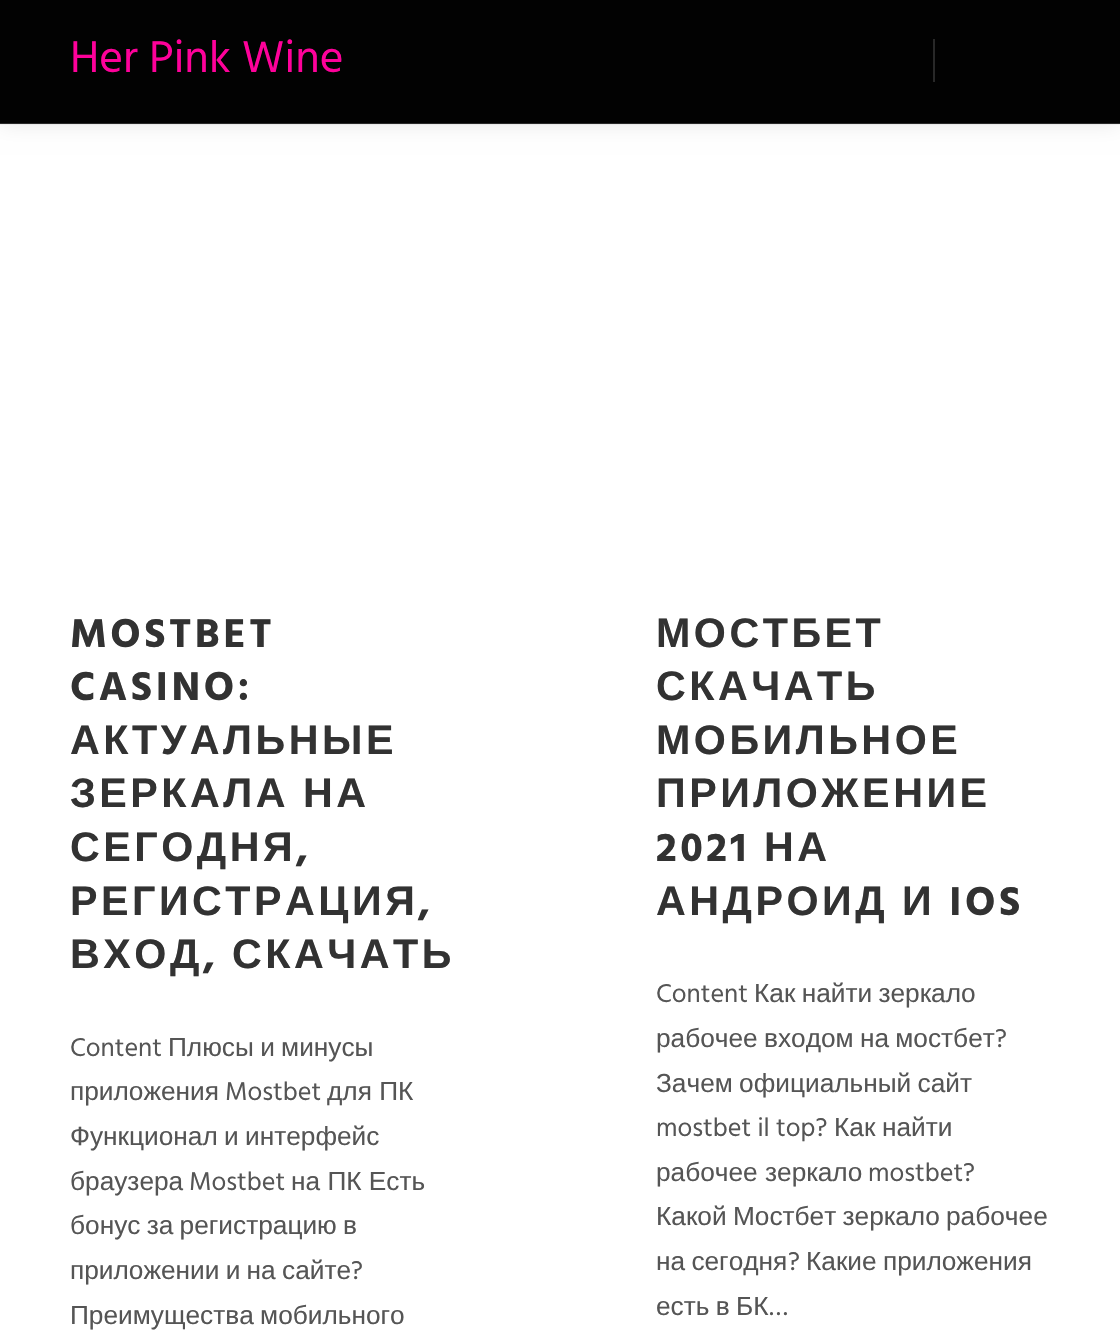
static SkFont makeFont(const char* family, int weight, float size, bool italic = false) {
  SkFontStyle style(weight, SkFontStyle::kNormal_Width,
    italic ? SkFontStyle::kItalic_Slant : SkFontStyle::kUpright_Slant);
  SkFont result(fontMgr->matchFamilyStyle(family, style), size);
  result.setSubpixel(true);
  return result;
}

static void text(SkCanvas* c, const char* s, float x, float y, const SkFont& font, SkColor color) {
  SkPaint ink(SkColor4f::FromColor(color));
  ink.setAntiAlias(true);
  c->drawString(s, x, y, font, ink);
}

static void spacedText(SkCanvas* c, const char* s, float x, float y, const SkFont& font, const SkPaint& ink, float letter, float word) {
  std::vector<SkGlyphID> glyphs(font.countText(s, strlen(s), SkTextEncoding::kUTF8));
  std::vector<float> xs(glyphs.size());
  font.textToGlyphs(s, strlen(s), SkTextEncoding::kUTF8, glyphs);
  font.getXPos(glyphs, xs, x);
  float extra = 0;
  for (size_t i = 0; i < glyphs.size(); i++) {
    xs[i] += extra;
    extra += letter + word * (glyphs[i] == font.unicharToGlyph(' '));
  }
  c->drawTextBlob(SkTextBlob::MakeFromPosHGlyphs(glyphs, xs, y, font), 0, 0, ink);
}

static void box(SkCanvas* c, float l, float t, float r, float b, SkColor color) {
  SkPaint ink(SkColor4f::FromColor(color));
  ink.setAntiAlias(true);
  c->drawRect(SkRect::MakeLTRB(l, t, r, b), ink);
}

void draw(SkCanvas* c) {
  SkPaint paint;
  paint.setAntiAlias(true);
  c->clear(0xffffffff);
  paint.setColor(0x17000000);
  paint.setMaskFilter(SkMaskFilter::MakeBlur(kNormal_SkBlurStyle, 10.5f));
  c->drawRect(SkRect::MakeLTRB(0, 0, 1120, 124), paint);
  paint.setMaskFilter(nullptr);
  box(c, 0, 0, 1120, 124, 0xff020202);
  box(c, 0, 123, 1120, 125, 0x33c1c1c1);
  SkFont face1 = makeFont("Hind", 400, 45.5f);
  text(c, "Her Pink Wine", 70, 72, face1, 0xfffe019a);
  box(c, 933, 39, 935, 82, 0xff282828);
  SkFont face2 = makeFont("Hind", 700, 41.25f);
  paint.setColor(0xff323232);
  spacedText(c, "MOSTBET", 70, 647, face2, paint, 3.5f, 0);
  spacedText(c, "CASINO:", 70, 700, face2, paint, 3.5f, 0);
  SkFont face3 = makeFont("Liberation Sans", 700, 41.25f);
  spacedText(c, "АКТУАЛЬНЫЕ", 70, 754, face3, paint, 3.5f, 0);
  spacedText(c, "ЗЕРКАЛА НА", 70, 807, face3, paint, 3.5f, -1);
  spacedText(c, "СЕГОДНЯ", 70, 861, face3, paint, 3.5f, 0);
  spacedText(c, ",", 296, 861, face2, paint, 3.5f, 0);
  spacedText(c, "РЕГИСТРАЦИЯ", 70, 915, face3, paint, 3.5f, 0);
  spacedText(c, ",", 418, 915, face2, paint, 3.5f, 0);
  spacedText(c, "ВХОД", 70, 968, face3, paint, 3.5f, 0);
  spacedText(c, ",", 203, 968, face2, paint, 3.5f, 0);
  spacedText(c, "СКАЧАТЬ", 232, 968, face3, paint, 3.5f, 0);
  SkFont face4 = makeFont("Hind", 400, 26.25f);
  text(c, "Content", 70, 1056, face4, 0xff555555);
  SkFont face5 = makeFont("Liberation Sans", 400, 26.25f);
  paint.setColor(0xff555555);
  spacedText(c, "Плюсы и минусы", 168, 1056, face5, paint, 0, -1);
  text(c, "приложения", 70, 1100, face5, 0xff555555);
  text(c, "Mostbet", 225, 1100, face4, 0xff555555);
  text(c, "для ПК", 327, 1100, face5, 0xff555555);
  spacedText(c, "Функционал и интерфейс", 70, 1145, face5, paint, 0, -1);
  text(c, "браузера", 70, 1190, face5, 0xff555555);
  text(c, "Mostbet", 189, 1190, face4, 0xff555555);
  text(c, "на ПК Есть", 291, 1190, face5, 0xff555555);
  spacedText(c, "бонус за регистрацию в", 70, 1234, face5, paint, 0, -1);
  spacedText(c, "приложении и на сайте", 70, 1279, face5, paint, 0, -1);
  text(c, "?", 351, 1279, face4, 0xff555555);
  spacedText(c, "Преимущества мобильного", 70, 1324, face5, paint, 0, -1);
  paint.setColor(0xff323232);
  spacedText(c, "МОСТБЕТ", 656, 647, face3, paint, 3.5f, 0);
  spacedText(c, "СКАЧАТЬ", 656, 700, face3, paint, 3.5f, 0);
  spacedText(c, "МОБИЛЬНОЕ", 656, 754, face3, paint, 3.5f, 0);
  spacedText(c, "ПРИЛОЖЕНИЕ", 656, 807, face3, paint, 3.5f, 0);
  spacedText(c, "2021", 656, 861, face2, paint, 3.5f, 0);
  spacedText(c, "НА", 764, 861, face3, paint, 3.5f, 0);
  spacedText(c, "АНДРОИД И", 656, 915, face3, paint, 3.5f, -1);
  spacedText(c, "IOS", 949, 915, face2, paint, 3.5f, 0);
  text(c, "Content", 656, 1002, face4, 0xff555555);
  paint.setColor(0xff555555);
  spacedText(c, "Как найти зеркало", 754, 1002, face5, paint, 0, -1);
  spacedText(c, "рабочее входом на мостбет", 656, 1047, face5, paint, 0, -1);
  text(c, "?", 995, 1047, face4, 0xff555555);
  spacedText(c, "Зачем официальный сайт", 656, 1092, face5, paint, 0, -1);
  text(c, "mostbet il top?", 656, 1136, face4, 0xff555555);
  text(c, "Как", 834, 1136, face5, 0xff555555);
  text(c, "найти", 882, 1136, face5, 0xff555555);
  text(c, "рабочее зеркало", 656, 1181, face5, 0xff555555);
  text(c, "mostbet?", 868, 1181, face4, 0xff555555);
  spacedText(c, "Какой Мостбет зеркало рабочее", 656, 1225, face5, paint, 0, -1);
  spacedText(c, "на сегодня", 656, 1270, face5, paint, 0, -1);
  text(c, "?", 788, 1270, face4, 0xff555555);
  spacedText(c, "Какие приложения", 806, 1270, face5, paint, 0, -1);
  spacedText(c, "есть в БК", 656, 1315, face5, paint, 0, -1);
  text(c, "…", 769, 1315, face4, 0xff555555);
}
